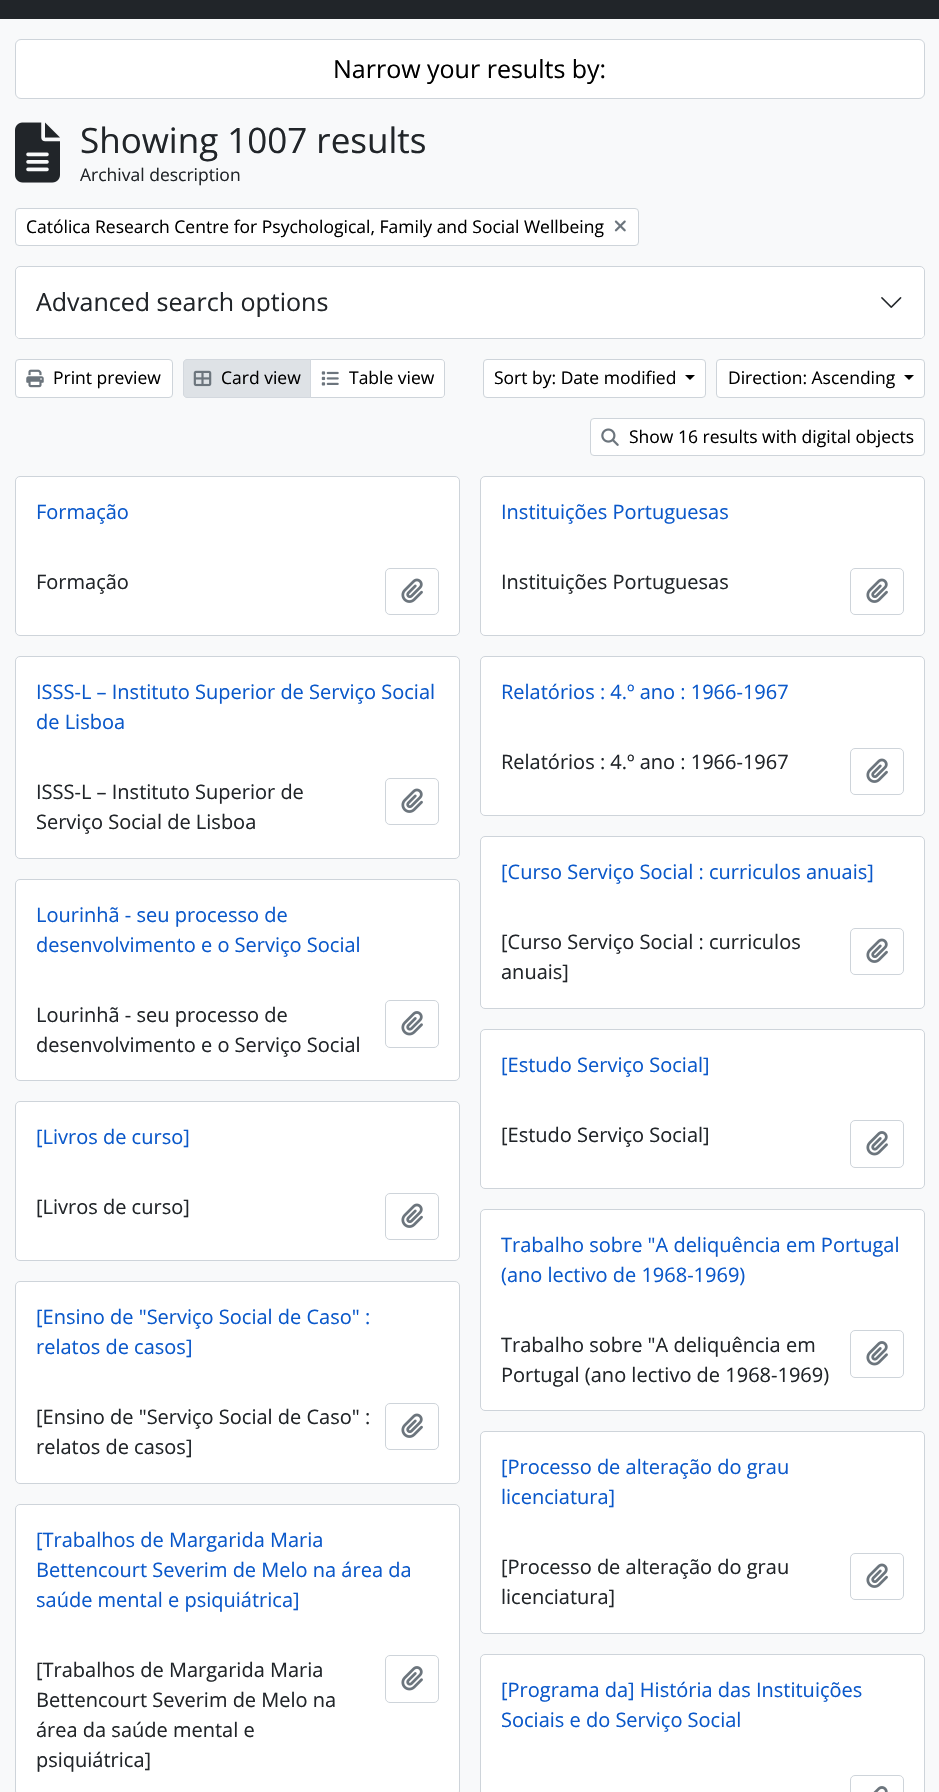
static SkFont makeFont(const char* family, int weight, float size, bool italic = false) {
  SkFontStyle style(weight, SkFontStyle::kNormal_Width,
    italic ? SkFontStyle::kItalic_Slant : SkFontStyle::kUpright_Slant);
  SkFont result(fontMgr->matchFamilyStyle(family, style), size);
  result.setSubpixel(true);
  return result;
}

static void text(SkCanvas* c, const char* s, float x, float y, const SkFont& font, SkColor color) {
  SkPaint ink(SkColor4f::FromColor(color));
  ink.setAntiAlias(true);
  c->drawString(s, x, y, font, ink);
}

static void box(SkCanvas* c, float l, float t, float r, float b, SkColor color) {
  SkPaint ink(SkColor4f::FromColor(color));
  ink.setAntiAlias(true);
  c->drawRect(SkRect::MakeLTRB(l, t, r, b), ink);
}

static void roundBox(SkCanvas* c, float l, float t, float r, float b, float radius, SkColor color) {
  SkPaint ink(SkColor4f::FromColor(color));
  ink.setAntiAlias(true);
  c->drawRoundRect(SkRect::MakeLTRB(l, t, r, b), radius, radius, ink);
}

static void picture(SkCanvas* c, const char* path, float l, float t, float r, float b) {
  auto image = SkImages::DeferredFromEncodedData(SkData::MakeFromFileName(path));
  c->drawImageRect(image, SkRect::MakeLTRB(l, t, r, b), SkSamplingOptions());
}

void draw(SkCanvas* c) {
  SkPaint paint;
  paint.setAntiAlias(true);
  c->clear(0xfff8f9fa);
  box(c, 0, 0, 939, 19, 0xff212529);
  paint.setColor(0xffffffff);
  c->drawRoundRect(SkRect::MakeLTRB(15.5f, 39.5f, 924.5f, 98.5f), 5.5f, 5.5f, paint);
  paint.setStyle(SkPaint::kStroke_Style);
  paint.setStrokeWidth(1);
  paint.setColor(0xffced4da);
  c->drawRoundRect(SkRect::MakeLTRB(15.5f, 39.5f, 924.5f, 98.5f), 5.5f, 5.5f, paint);
  SkFont face1 = makeFont("Open Sans", 400, 25);
  text(c, "Narrow your results by:", 333, 78, face1, 0xff000000);
  picture(c, "img_01.png", 15, 122, 60, 183);
  SkFont face2 = makeFont("Open Sans", 400, 35);
  text(c, "Showing 1007 results", 80, 153, face2, 0xff212529);
  SkFont face3 = makeFont("Open Sans", 400, 17.5f);
  text(c, "Archival description", 80, 181, face3, 0xff212529);
  paint.setStyle(SkPaint::kFill_Style);
  paint.setColor(0xffffffff);
  c->drawRoundRect(SkRect::MakeLTRB(15.5f, 208.5f, 638.5f, 245.5f), 3.5f, 3.5f, paint);
  paint.setStyle(SkPaint::kStroke_Style);
  paint.setColor(0xffced4da);
  c->drawRoundRect(SkRect::MakeLTRB(15.5f, 208.5f, 638.5f, 245.5f), 3.5f, 3.5f, paint);
  text(c, "Católica Research Centre for Psychological, Family and Social Wellbeing", 26, 233, face3, 0xff000000);
  picture(c, "img_02.png", 614, 220, 626, 232);
  paint.setStyle(SkPaint::kFill_Style);
  paint.setColor(0xffffffff);
  c->drawRoundRect(SkRect::MakeLTRB(15.5f, 266.5f, 924.5f, 338.5f), 4.5f, 4.5f, paint);
  paint.setStyle(SkPaint::kStroke_Style);
  paint.setColor(0xffced4da);
  c->drawRoundRect(SkRect::MakeLTRB(15.5f, 266.5f, 924.5f, 338.5f), 4.5f, 4.5f, paint);
  roundBox(c, 16, 268, 924, 338, 4, 0xffffffff);
  text(c, "Advanced search options", 36, 311, face1, 0xff212529);
  picture(c, "img_03.png", 881, 297, 902, 308);
  paint.setStyle(SkPaint::kFill_Style);
  paint.setColor(0xffffffff);
  c->drawRoundRect(SkRect::MakeLTRB(15.5f, 359.5f, 172.5f, 397.5f), 3.5f, 3.5f, paint);
  paint.setStyle(SkPaint::kStroke_Style);
  paint.setColor(0xffced4da);
  c->drawRoundRect(SkRect::MakeLTRB(15.5f, 359.5f, 172.5f, 397.5f), 3.5f, 3.5f, paint);
  picture(c, "img_04.png", 26, 369, 44, 388);
  text(c, "Print preview", 53, 384, face3, 0xff000000);
  paint.setStyle(SkPaint::kFill_Style);
  paint.setColor(0xffffffff);
  c->drawPath(SkPathBuilder().moveTo(310.5f, 359.5f).lineTo(441, 359.5f).cubicTo(443, 359.5f, 444.5f, 361, 444.5f, 363).lineTo(444.5f, 394).cubicTo(444.5f, 396, 443, 397.5f, 441, 397.5f).lineTo(310.5f, 397.5f).close().detach(), paint);
  paint.setStyle(SkPaint::kStroke_Style);
  paint.setColor(0xffced4da);
  c->drawPath(SkPathBuilder().moveTo(310.5f, 359.5f).lineTo(441, 359.5f).cubicTo(443, 359.5f, 444.5f, 361, 444.5f, 363).lineTo(444.5f, 394).cubicTo(444.5f, 396, 443, 397.5f, 441, 397.5f).lineTo(310.5f, 397.5f).close().detach(), paint);
  paint.setStyle(SkPaint::kFill_Style);
  paint.setColor(0xffdee2e6);
  c->drawPath(SkPathBuilder().moveTo(187, 359.5f).lineTo(310.5f, 359.5f).lineTo(310.5f, 397.5f).lineTo(187, 397.5f).cubicTo(185, 397.5f, 183.5f, 396, 183.5f, 394).lineTo(183.5f, 363).cubicTo(183.5f, 361, 185, 359.5f, 187, 359.5f).close().detach(), paint);
  paint.setStyle(SkPaint::kStroke_Style);
  paint.setColor(0xffd3d8de);
  c->drawPath(SkPathBuilder().moveTo(187, 359.5f).lineTo(310.5f, 359.5f).lineTo(310.5f, 397.5f).lineTo(187, 397.5f).cubicTo(185, 397.5f, 183.5f, 396, 183.5f, 394).lineTo(183.5f, 363).cubicTo(183.5f, 361, 185, 359.5f, 187, 359.5f).close().detach(), paint);
  picture(c, "img_05.png", 193, 370, 212, 387);
  text(c, "Card view", 221, 384, face3, 0xff000000);
  picture(c, "img_06.png", 321, 371, 339, 386);
  text(c, "Table view", 349, 384, face3, 0xff000000);
  paint.setStyle(SkPaint::kFill_Style);
  paint.setColor(0xffffffff);
  c->drawRoundRect(SkRect::MakeLTRB(483.5f, 359.5f, 705.5f, 397.5f), 3.5f, 3.5f, paint);
  paint.setStyle(SkPaint::kStroke_Style);
  paint.setColor(0xffced4da);
  c->drawRoundRect(SkRect::MakeLTRB(483.5f, 359.5f, 705.5f, 397.5f), 3.5f, 3.5f, paint);
  text(c, "Sort by: Date modified", 494, 384, face3, 0xff000000);
  paint.setStyle(SkPaint::kFill_Style);
  paint.setColor(0xff000000);
  c->drawPath(SkPathBuilder().moveTo(685, 375).lineTo(695, 375).lineTo(690, 380).close().detach(), paint);
  paint.setColor(0xffffffff);
  c->drawRoundRect(SkRect::MakeLTRB(716.5f, 359.5f, 924.5f, 397.5f), 3.5f, 3.5f, paint);
  paint.setStyle(SkPaint::kStroke_Style);
  paint.setColor(0xffced4da);
  c->drawRoundRect(SkRect::MakeLTRB(716.5f, 359.5f, 924.5f, 397.5f), 3.5f, 3.5f, paint);
  text(c, "Direction: Ascending", 728, 384, face3, 0xff000000);
  paint.setStyle(SkPaint::kFill_Style);
  paint.setColor(0xff000000);
  c->drawPath(SkPathBuilder().moveTo(904, 375).lineTo(914, 375).lineTo(909, 380).close().detach(), paint);
  paint.setColor(0xffffffff);
  c->drawRoundRect(SkRect::MakeLTRB(590.5f, 418.5f, 924.5f, 455.5f), 3.5f, 3.5f, paint);
  paint.setStyle(SkPaint::kStroke_Style);
  paint.setColor(0xffced4da);
  c->drawRoundRect(SkRect::MakeLTRB(590.5f, 418.5f, 924.5f, 455.5f), 3.5f, 3.5f, paint);
  picture(c, "img_07.png", 601, 428, 619, 446);
  text(c, "Show 16 results with digital objects", 629, 443, face3, 0xff000000);
  paint.setStyle(SkPaint::kFill_Style);
  paint.setColor(0xffffffff);
  c->drawRoundRect(SkRect::MakeLTRB(15.5f, 476.5f, 459.5f, 635.5f), 4.5f, 4.5f, paint);
  paint.setStyle(SkPaint::kStroke_Style);
  paint.setColor(0xffced4da);
  c->drawRoundRect(SkRect::MakeLTRB(15.5f, 476.5f, 459.5f, 635.5f), 4.5f, 4.5f, paint);
  SkFont face4 = makeFont("Open Sans", 400, 20);
  text(c, "Formação", 36, 519, face4, 0xff0a58ca);
  text(c, "Formação", 36, 589, face4, 0xff212529);
  c->drawRoundRect(SkRect::MakeLTRB(385.5f, 568.5f, 438.5f, 614.5f), 4.5f, 4.5f, paint);
  picture(c, "img_08.png", 401, 578, 423, 603);
  paint.setStyle(SkPaint::kFill_Style);
  paint.setColor(0xffffffff);
  c->drawRoundRect(SkRect::MakeLTRB(480.5f, 476.5f, 924.5f, 635.5f), 4.5f, 4.5f, paint);
  paint.setStyle(SkPaint::kStroke_Style);
  paint.setColor(0xffced4da);
  c->drawRoundRect(SkRect::MakeLTRB(480.5f, 476.5f, 924.5f, 635.5f), 4.5f, 4.5f, paint);
  text(c, "Instituições Portuguesas", 501, 519, face4, 0xff0a58ca);
  text(c, "Instituições Portuguesas", 501, 589, face4, 0xff212529);
  c->drawRoundRect(SkRect::MakeLTRB(850.5f, 568.5f, 903.5f, 614.5f), 4.5f, 4.5f, paint);
  picture(c, "img_08.png", 866, 578, 888, 603);
  paint.setStyle(SkPaint::kFill_Style);
  paint.setColor(0xffffffff);
  c->drawRoundRect(SkRect::MakeLTRB(15.5f, 656.5f, 459.5f, 858.5f), 4.5f, 4.5f, paint);
  paint.setStyle(SkPaint::kStroke_Style);
  paint.setColor(0xffced4da);
  c->drawRoundRect(SkRect::MakeLTRB(15.5f, 656.5f, 459.5f, 858.5f), 4.5f, 4.5f, paint);
  text(c, "ISSS-L – Instituto Superior de Serviço Social", 36, 699, face4, 0xff0a58ca);
  text(c, "de Lisboa", 36, 729, face4, 0xff0a58ca);
  text(c, "ISSS-L – Instituto Superior de", 36, 799, face4, 0xff212529);
  text(c, "Serviço Social de Lisboa", 36, 829, face4, 0xff212529);
  c->drawRoundRect(SkRect::MakeLTRB(385.5f, 778.5f, 438.5f, 824.5f), 4.5f, 4.5f, paint);
  picture(c, "img_08.png", 401, 788, 423, 813);
  paint.setStyle(SkPaint::kFill_Style);
  paint.setColor(0xffffffff);
  c->drawRoundRect(SkRect::MakeLTRB(480.5f, 656.5f, 924.5f, 815.5f), 4.5f, 4.5f, paint);
  paint.setStyle(SkPaint::kStroke_Style);
  paint.setColor(0xffced4da);
  c->drawRoundRect(SkRect::MakeLTRB(480.5f, 656.5f, 924.5f, 815.5f), 4.5f, 4.5f, paint);
  text(c, "Relatórios : 4.º ano : 1966-1967", 501, 699, face4, 0xff0a58ca);
  text(c, "Relatórios : 4.º ano : 1966-1967", 501, 769, face4, 0xff212529);
  c->drawRoundRect(SkRect::MakeLTRB(850.5f, 748.5f, 903.5f, 794.5f), 4.5f, 4.5f, paint);
  picture(c, "img_08.png", 866, 758, 888, 783);
  paint.setStyle(SkPaint::kFill_Style);
  paint.setColor(0xffffffff);
  c->drawRoundRect(SkRect::MakeLTRB(15.5f, 879.5f, 459.5f, 1080.5f), 4.5f, 4.5f, paint);
  paint.setStyle(SkPaint::kStroke_Style);
  paint.setColor(0xffced4da);
  c->drawRoundRect(SkRect::MakeLTRB(15.5f, 879.5f, 459.5f, 1080.5f), 4.5f, 4.5f, paint);
  text(c, "Lourinhã - seu processo de", 36, 922, face4, 0xff0a58ca);
  text(c, "desenvolvimento e o Serviço Social", 36, 952, face4, 0xff0a58ca);
  text(c, "Lourinhã - seu processo de", 36, 1022, face4, 0xff212529);
  text(c, "desenvolvimento e o Serviço Social", 36, 1052, face4, 0xff212529);
  c->drawRoundRect(SkRect::MakeLTRB(385.5f, 1000.5f, 438.5f, 1047.5f), 4.5f, 4.5f, paint);
  picture(c, "img_09.png", 401, 1011, 423, 1036);
  paint.setStyle(SkPaint::kFill_Style);
  paint.setColor(0xffffffff);
  c->drawRoundRect(SkRect::MakeLTRB(480.5f, 836.5f, 924.5f, 1008.5f), 4.5f, 4.5f, paint);
  paint.setStyle(SkPaint::kStroke_Style);
  paint.setColor(0xffced4da);
  c->drawRoundRect(SkRect::MakeLTRB(480.5f, 836.5f, 924.5f, 1008.5f), 4.5f, 4.5f, paint);
  text(c, "[Curso Serviço Social : curriculos anuais]", 501, 879, face4, 0xff0a58ca);
  text(c, "[Curso Serviço Social : curriculos", 501, 949, face4, 0xff212529);
  text(c, "anuais]", 501, 979, face4, 0xff212529);
  c->drawRoundRect(SkRect::MakeLTRB(850.5f, 928.5f, 903.5f, 974.5f), 4.5f, 4.5f, paint);
  picture(c, "img_08.png", 866, 938, 888, 963);
  paint.setStyle(SkPaint::kFill_Style);
  paint.setColor(0xffffffff);
  c->drawRoundRect(SkRect::MakeLTRB(480.5f, 1029.5f, 924.5f, 1188.5f), 4.5f, 4.5f, paint);
  paint.setStyle(SkPaint::kStroke_Style);
  paint.setColor(0xffced4da);
  c->drawRoundRect(SkRect::MakeLTRB(480.5f, 1029.5f, 924.5f, 1188.5f), 4.5f, 4.5f, paint);
  text(c, "[Estudo Serviço Social]", 501, 1072, face4, 0xff0a58ca);
  text(c, "[Estudo Serviço Social]", 501, 1142, face4, 0xff212529);
  c->drawRoundRect(SkRect::MakeLTRB(850.5f, 1120.5f, 903.5f, 1167.5f), 4.5f, 4.5f, paint);
  picture(c, "img_09.png", 866, 1131, 888, 1156);
  paint.setStyle(SkPaint::kFill_Style);
  paint.setColor(0xffffffff);
  c->drawRoundRect(SkRect::MakeLTRB(15.5f, 1101.5f, 459.5f, 1260.5f), 4.5f, 4.5f, paint);
  paint.setStyle(SkPaint::kStroke_Style);
  paint.setColor(0xffced4da);
  c->drawRoundRect(SkRect::MakeLTRB(15.5f, 1101.5f, 459.5f, 1260.5f), 4.5f, 4.5f, paint);
  text(c, "[Livros de curso]", 36, 1144, face4, 0xff0a58ca);
  text(c, "[Livros de curso]", 36, 1214, face4, 0xff212529);
  c->drawRoundRect(SkRect::MakeLTRB(385.5f, 1193.5f, 438.5f, 1239.5f), 4.5f, 4.5f, paint);
  picture(c, "img_08.png", 401, 1203, 423, 1228);
  paint.setStyle(SkPaint::kFill_Style);
  paint.setColor(0xffffffff);
  c->drawRoundRect(SkRect::MakeLTRB(15.5f, 1281.5f, 459.5f, 1483.5f), 4.5f, 4.5f, paint);
  paint.setStyle(SkPaint::kStroke_Style);
  paint.setColor(0xffced4da);
  c->drawRoundRect(SkRect::MakeLTRB(15.5f, 1281.5f, 459.5f, 1483.5f), 4.5f, 4.5f, paint);
  text(c, "[Ensino de \"Serviço Social de Caso\" :", 36, 1324, face4, 0xff0a58ca);
  text(c, "relatos de casos]", 36, 1354, face4, 0xff0a58ca);
  text(c, "[Ensino de \"Serviço Social de Caso\" :", 36, 1424, face4, 0xff212529);
  text(c, "relatos de casos]", 36, 1454, face4, 0xff212529);
  c->drawRoundRect(SkRect::MakeLTRB(385.5f, 1403.5f, 438.5f, 1449.5f), 4.5f, 4.5f, paint);
  picture(c, "img_08.png", 401, 1413, 423, 1438);
  paint.setStyle(SkPaint::kFill_Style);
  paint.setColor(0xffffffff);
  c->drawRoundRect(SkRect::MakeLTRB(480.5f, 1209.5f, 924.5f, 1410.5f), 4.5f, 4.5f, paint);
  paint.setStyle(SkPaint::kStroke_Style);
  paint.setColor(0xffced4da);
  c->drawRoundRect(SkRect::MakeLTRB(480.5f, 1209.5f, 924.5f, 1410.5f), 4.5f, 4.5f, paint);
  text(c, "Trabalho sobre \"A deliquência em Portugal", 501, 1252, face4, 0xff0a58ca);
  text(c, "(ano lectivo de 1968-1969)", 501, 1282, face4, 0xff0a58ca);
  text(c, "Trabalho sobre \"A deliquência em", 501, 1352, face4, 0xff212529);
  text(c, "Portugal (ano lectivo de 1968-1969)", 501, 1382, face4, 0xff212529);
  c->drawRoundRect(SkRect::MakeLTRB(850.5f, 1330.5f, 903.5f, 1377.5f), 4.5f, 4.5f, paint);
  picture(c, "img_09.png", 866, 1341, 888, 1366);
  paint.setStyle(SkPaint::kFill_Style);
  paint.setColor(0xffffffff);
  c->drawRoundRect(SkRect::MakeLTRB(15.5f, 1504.5f, 459.5f, 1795.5f), 4.5f, 4.5f, paint);
  paint.setStyle(SkPaint::kStroke_Style);
  paint.setColor(0xffced4da);
  c->drawRoundRect(SkRect::MakeLTRB(15.5f, 1504.5f, 459.5f, 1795.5f), 4.5f, 4.5f, paint);
  text(c, "[Trabalhos de Margarida Maria", 36, 1547, face4, 0xff0a58ca);
  text(c, "Bettencourt Severim de Melo na área da", 36, 1577, face4, 0xff0a58ca);
  text(c, "saúde mental e psiquiátrica]", 36, 1607, face4, 0xff0a58ca);
  text(c, "[Trabalhos de Margarida Maria", 36, 1677, face4, 0xff212529);
  text(c, "Bettencourt Severim de Melo na", 36, 1707, face4, 0xff212529);
  text(c, "área da saúde mental e", 36, 1737, face4, 0xff212529);
  text(c, "psiquiátrica]", 36, 1767, face4, 0xff212529);
  c->drawRoundRect(SkRect::MakeLTRB(385.5f, 1655.5f, 438.5f, 1702.5f), 4.5f, 4.5f, paint);
  picture(c, "img_09.png", 401, 1666, 423, 1691);
  paint.setStyle(SkPaint::kFill_Style);
  paint.setColor(0xffffffff);
  c->drawRoundRect(SkRect::MakeLTRB(480.5f, 1431.5f, 924.5f, 1633.5f), 4.5f, 4.5f, paint);
  paint.setStyle(SkPaint::kStroke_Style);
  paint.setColor(0xffced4da);
  c->drawRoundRect(SkRect::MakeLTRB(480.5f, 1431.5f, 924.5f, 1633.5f), 4.5f, 4.5f, paint);
  text(c, "[Processo de alteração do grau", 501, 1474, face4, 0xff0a58ca);
  text(c, "licenciatura]", 501, 1504, face4, 0xff0a58ca);
  text(c, "[Processo de alteração do grau", 501, 1574, face4, 0xff212529);
  text(c, "licenciatura]", 501, 1604, face4, 0xff212529);
  c->drawRoundRect(SkRect::MakeLTRB(850.5f, 1553.5f, 903.5f, 1599.5f), 4.5f, 4.5f, paint);
  picture(c, "img_08.png", 866, 1563, 888, 1588);
  paint.setStyle(SkPaint::kFill_Style);
  paint.setColor(0xffffffff);
  c->drawRoundRect(SkRect::MakeLTRB(480.5f, 1654.5f, 924.5f, 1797.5f), 4.5f, 4.5f, paint);
  paint.setStyle(SkPaint::kStroke_Style);
  paint.setColor(0xffced4da);
  c->drawRoundRect(SkRect::MakeLTRB(480.5f, 1654.5f, 924.5f, 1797.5f), 4.5f, 4.5f, paint);
  text(c, "[Programa da] História das Instituições", 501, 1697, face4, 0xff0a58ca);
  text(c, "Sociais e do Serviço Social", 501, 1727, face4, 0xff0a58ca);
  c->drawRoundRect(SkRect::MakeLTRB(850.5f, 1775.5f, 903.5f, 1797.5f), 4.5f, 4.5f, paint);
  picture(c, "img_10.png", 873, 1786, 888, 1792);
}
